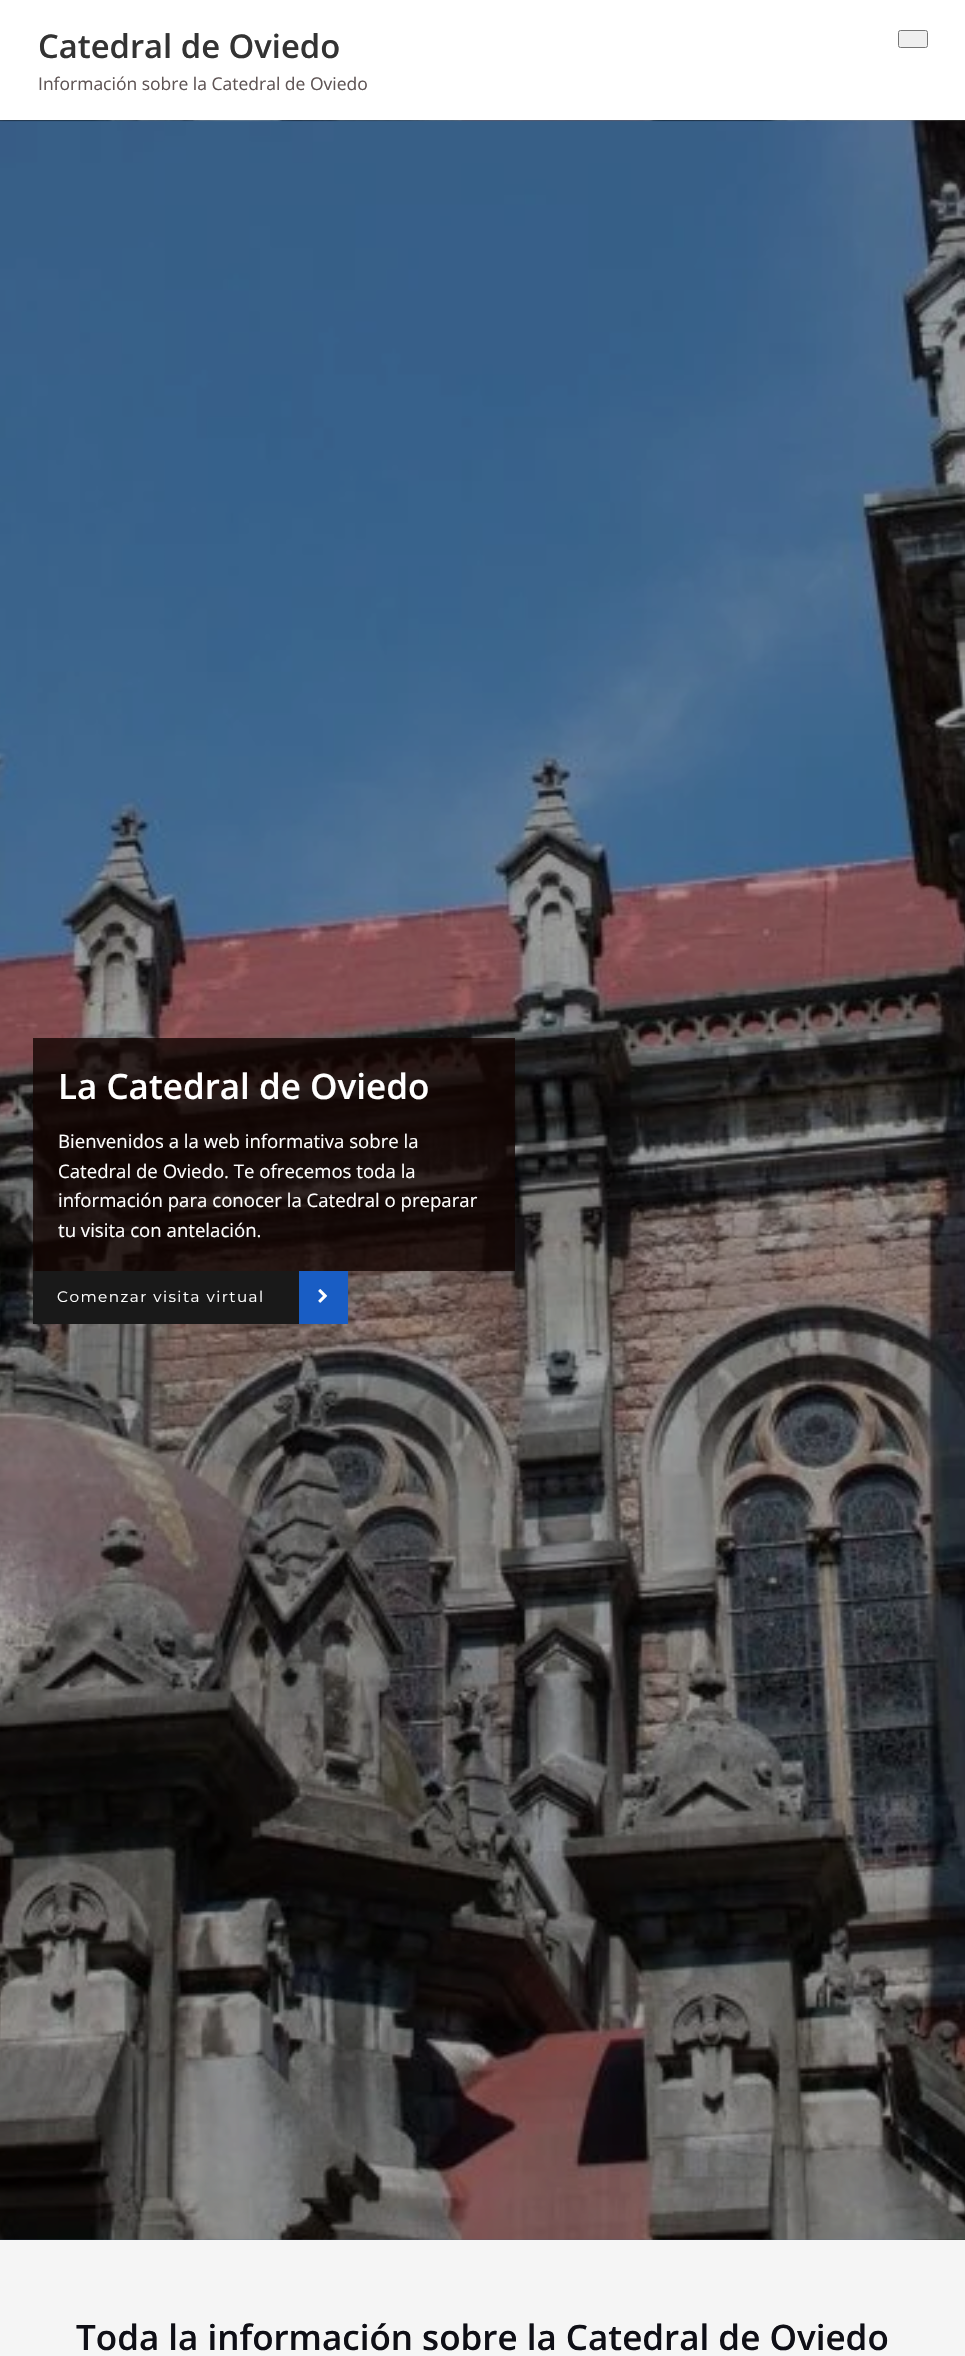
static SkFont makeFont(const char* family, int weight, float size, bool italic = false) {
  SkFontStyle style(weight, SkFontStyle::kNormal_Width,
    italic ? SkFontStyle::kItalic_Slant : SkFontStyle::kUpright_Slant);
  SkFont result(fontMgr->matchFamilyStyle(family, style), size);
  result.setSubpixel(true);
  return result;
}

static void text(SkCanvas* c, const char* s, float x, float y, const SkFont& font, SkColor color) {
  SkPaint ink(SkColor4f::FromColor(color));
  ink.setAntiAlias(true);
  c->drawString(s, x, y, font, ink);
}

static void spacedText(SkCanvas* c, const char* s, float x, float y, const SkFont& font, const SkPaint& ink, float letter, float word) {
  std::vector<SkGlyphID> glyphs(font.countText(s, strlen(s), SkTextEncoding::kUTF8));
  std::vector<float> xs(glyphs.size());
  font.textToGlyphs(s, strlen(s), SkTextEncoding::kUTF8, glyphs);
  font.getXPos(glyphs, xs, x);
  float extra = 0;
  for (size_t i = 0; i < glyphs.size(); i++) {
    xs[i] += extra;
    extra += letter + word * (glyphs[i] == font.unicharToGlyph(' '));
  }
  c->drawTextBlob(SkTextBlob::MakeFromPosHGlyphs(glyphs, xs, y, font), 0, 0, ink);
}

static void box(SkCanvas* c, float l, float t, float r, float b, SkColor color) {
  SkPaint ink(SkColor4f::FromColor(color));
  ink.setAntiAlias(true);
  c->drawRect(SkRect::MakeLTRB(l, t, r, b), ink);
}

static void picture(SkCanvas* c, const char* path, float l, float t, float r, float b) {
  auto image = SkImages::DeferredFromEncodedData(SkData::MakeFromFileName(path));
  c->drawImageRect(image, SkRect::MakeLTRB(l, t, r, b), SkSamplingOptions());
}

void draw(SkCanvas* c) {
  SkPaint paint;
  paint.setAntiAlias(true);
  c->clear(0xfff5f5f5);
  box(c, 0, 0, 965, 120, 0xffffffff);
  SkFont face1 = makeFont("Open Sans", 600, 32.75f);
  text(c, "Catedral de Oviedo", 38, 58, face1, 0xff333333);
  SkFont face2 = makeFont("Open Sans", 400, 17.5f);
  text(c, "Información sobre la Catedral de Oviedo", 38, 90, face2, 0xff5f5555);
  paint.setColor(0xffefefef);
  c->drawRoundRect(SkRect::MakeLTRB(898.5f, 30.5f, 927.5f, 47.5f), 2, 2, paint);
  paint.setStyle(SkPaint::kStroke_Style);
  paint.setStrokeWidth(1);
  paint.setColor(0xff767676);
  c->drawRoundRect(SkRect::MakeLTRB(898.5f, 30.5f, 927.5f, 47.5f), 2, 2, paint);
  picture(c, "img_01.png", 0, 120, 965, 2240);
  box(c, 33, 1038, 515, 1271, 0xcc120401);
  SkFont face3 = makeFont("Open Sans", 600, 35);
  text(c, "La Catedral de Oviedo", 58, 1099, face3, 0xffffffff);
  SkFont face4 = makeFont("Open Sans", 400, 18.6f);
  text(c, "Bienvenidos a la web informativa sobre la", 58, 1148, face4, 0xffffffff);
  text(c, "Catedral de Oviedo. Te ofrecemos toda la", 58, 1178, face4, 0xffffffff);
  text(c, "información para conocer la Catedral o preparar", 58, 1207, face4, 0xffffffff);
  text(c, "tu visita con antelación.", 58, 1237, face4, 0xffffffff);
  box(c, 33, 1271, 299, 1324, 0xff191919);
  box(c, 299, 1271, 348, 1324, 0xff195dc4);
  SkFont face5 = makeFont("Montserrat", 400, 15.25f);
  paint.setStyle(SkPaint::kFill_Style);
  paint.setColor(0xffffffff);
  spacedText(c, "Comenzar visita virtual", 57, 1302, face5, paint, 1.45f, 0);
  picture(c, "img_02.png", 318, 1289, 328, 1303);
  text(c, "Toda la información sobre la Catedral de Oviedo", 76, 2350, face3, 0xff0f0f16);
}
